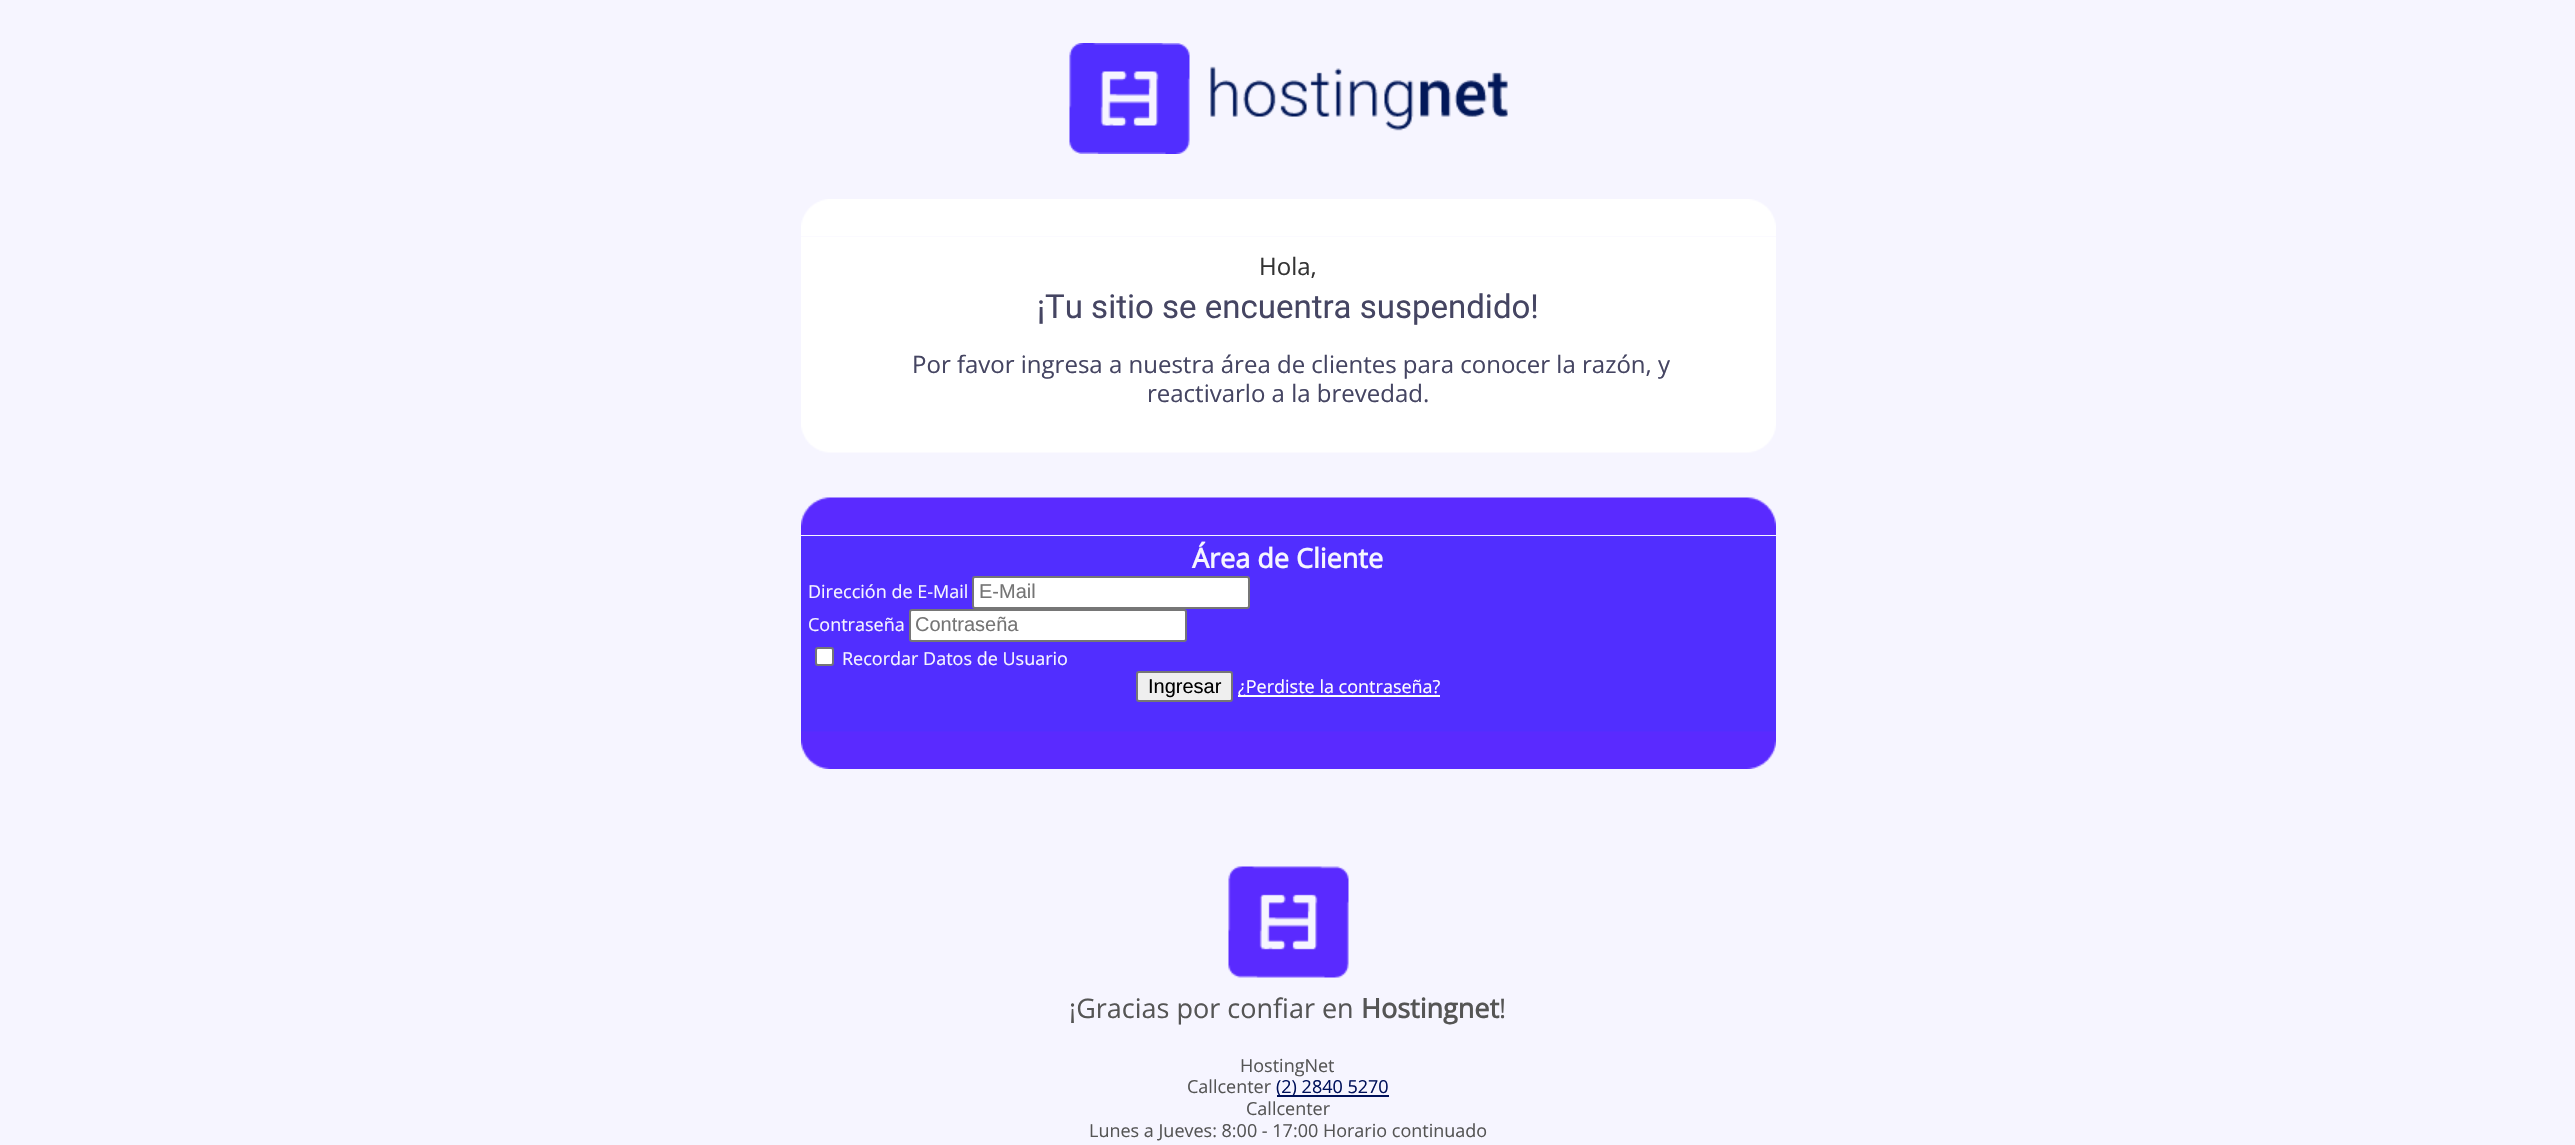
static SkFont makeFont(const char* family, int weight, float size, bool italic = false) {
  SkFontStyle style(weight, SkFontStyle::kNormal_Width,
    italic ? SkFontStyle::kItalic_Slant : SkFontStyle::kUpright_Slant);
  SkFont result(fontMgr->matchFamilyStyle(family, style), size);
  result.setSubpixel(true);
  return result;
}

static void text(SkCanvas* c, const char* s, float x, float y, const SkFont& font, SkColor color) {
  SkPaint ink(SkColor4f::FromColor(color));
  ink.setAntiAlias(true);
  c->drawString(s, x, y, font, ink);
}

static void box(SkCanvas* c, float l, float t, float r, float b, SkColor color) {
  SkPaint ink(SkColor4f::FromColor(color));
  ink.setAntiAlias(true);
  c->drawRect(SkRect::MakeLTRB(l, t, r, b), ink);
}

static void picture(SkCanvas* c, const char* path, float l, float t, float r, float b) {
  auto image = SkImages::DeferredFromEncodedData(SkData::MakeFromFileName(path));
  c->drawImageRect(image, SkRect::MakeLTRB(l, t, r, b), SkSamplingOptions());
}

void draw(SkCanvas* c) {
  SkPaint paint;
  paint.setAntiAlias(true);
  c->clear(0xfff6f5ff);
  picture(c, "img_01.png", 1069, 43, 1508, 154);
  picture(c, "img_02.png", 801, 199, 1776, 237);
  box(c, 801, 237, 1776, 416, 0xffffffff);
  SkFont face1 = makeFont("Open Sans", 400, 24);
  text(c, "Hola,", 1259, 275, face1, 0xff333333);
  SkFont face2 = makeFont("Roboto", 400, 33);
  text(c, "¡Tu sitio se encuentra suspendido!", 1037, 318, face2, 0xff454562);
  text(c, "Por favor ingresa a nuestra área de clientes para conocer la razón, y", 912, 373, face1, 0xff454562);
  text(c, "reactivarlo a la brevedad.", 1147, 402, face1, 0xff454562);
  picture(c, "img_03.png", 801, 416, 1776, 453);
  picture(c, "img_04.png", 801, 497, 1776, 535);
  box(c, 801, 536, 1776, 732, 0xff512eff);
  SkFont face3 = makeFont("Open Sans", 700, 27);
  text(c, "Área de Cliente", 1192, 568, face3, 0xfff6f5ff);
  SkFont face4 = makeFont("Open Sans", 400, 18);
  text(c, "Dirección de E-Mail", 808, 598, face4, 0xfff6f5ff);
  paint.setColor(0xffffffff);
  c->drawRoundRect(SkRect::MakeLTRB(973, 577, 1249, 608), 2, 2, paint);
  paint.setStyle(SkPaint::kStroke_Style);
  paint.setStrokeWidth(2);
  paint.setColor(0xff767676);
  c->drawRoundRect(SkRect::MakeLTRB(973, 577, 1249, 608), 2, 2, paint);
  SkFont face5 = makeFont("Liberation Sans", 400, 20);
  text(c, "E-Mail", 979, 598, face5, 0xff757575);
  text(c, "Contraseña", 808, 631, face4, 0xfff6f5ff);
  paint.setStyle(SkPaint::kFill_Style);
  paint.setColor(0xffffffff);
  c->drawRoundRect(SkRect::MakeLTRB(910, 610, 1186, 641), 2, 2, paint);
  paint.setStyle(SkPaint::kStroke_Style);
  paint.setColor(0xff767676);
  c->drawRoundRect(SkRect::MakeLTRB(910, 610, 1186, 641), 2, 2, paint);
  text(c, "Contraseña", 915, 631, face5, 0xff757575);
  paint.setStyle(SkPaint::kFill_Style);
  paint.setColor(0xffffffff);
  c->drawRoundRect(SkRect::MakeLTRB(816, 648, 833, 665), 2, 2, paint);
  paint.setStyle(SkPaint::kStroke_Style);
  paint.setColor(0xff767676);
  c->drawRoundRect(SkRect::MakeLTRB(816, 648, 833, 665), 2, 2, paint);
  text(c, "Recordar Datos de Usuario", 842, 665, face4, 0xfff6f5ff);
  paint.setStyle(SkPaint::kFill_Style);
  paint.setColor(0xffefefef);
  c->drawRoundRect(SkRect::MakeLTRB(1137, 672, 1232, 701), 2, 2, paint);
  paint.setStyle(SkPaint::kStroke_Style);
  paint.setColor(0xff767676);
  c->drawRoundRect(SkRect::MakeLTRB(1137, 672, 1232, 701), 2, 2, paint);
  text(c, "Ingresar", 1148, 693, face5, 0xff000000);
  box(c, 1238, 695, 1440, 697, 0xffffffff);
  text(c, "¿Perdiste la contraseña?", 1238, 693, face4, 0xffffffff);
  picture(c, "img_05.png", 801, 731, 1776, 769);
  picture(c, "img_06.png", 1228, 866, 1349, 978);
  SkFont face6 = makeFont("Open Sans", 400, 27);
  text(c, "¡Gracias por confiar en", 1069, 1018, face6, 0xff555555);
  text(c, "Hostingnet", 1361, 1018, face3, 0xff555555);
  text(c, "!", 1499, 1018, face6, 0xff555555);
  text(c, "HostingNet", 1240, 1072, face4, 0xff555555);
  text(c, "Callcenter", 1187, 1093, face4, 0xff555555);
  box(c, 1277, 1095, 1389, 1097, 0xff00115a);
  text(c, "(2) 2840 5270", 1276, 1093, face4, 0xff00115a);
  text(c, "Callcenter", 1246, 1115, face4, 0xff555555);
  text(c, "Lunes a Jueves: 8:00 - 17:00 Horario continuado", 1089, 1137, face4, 0xff555555);
}
